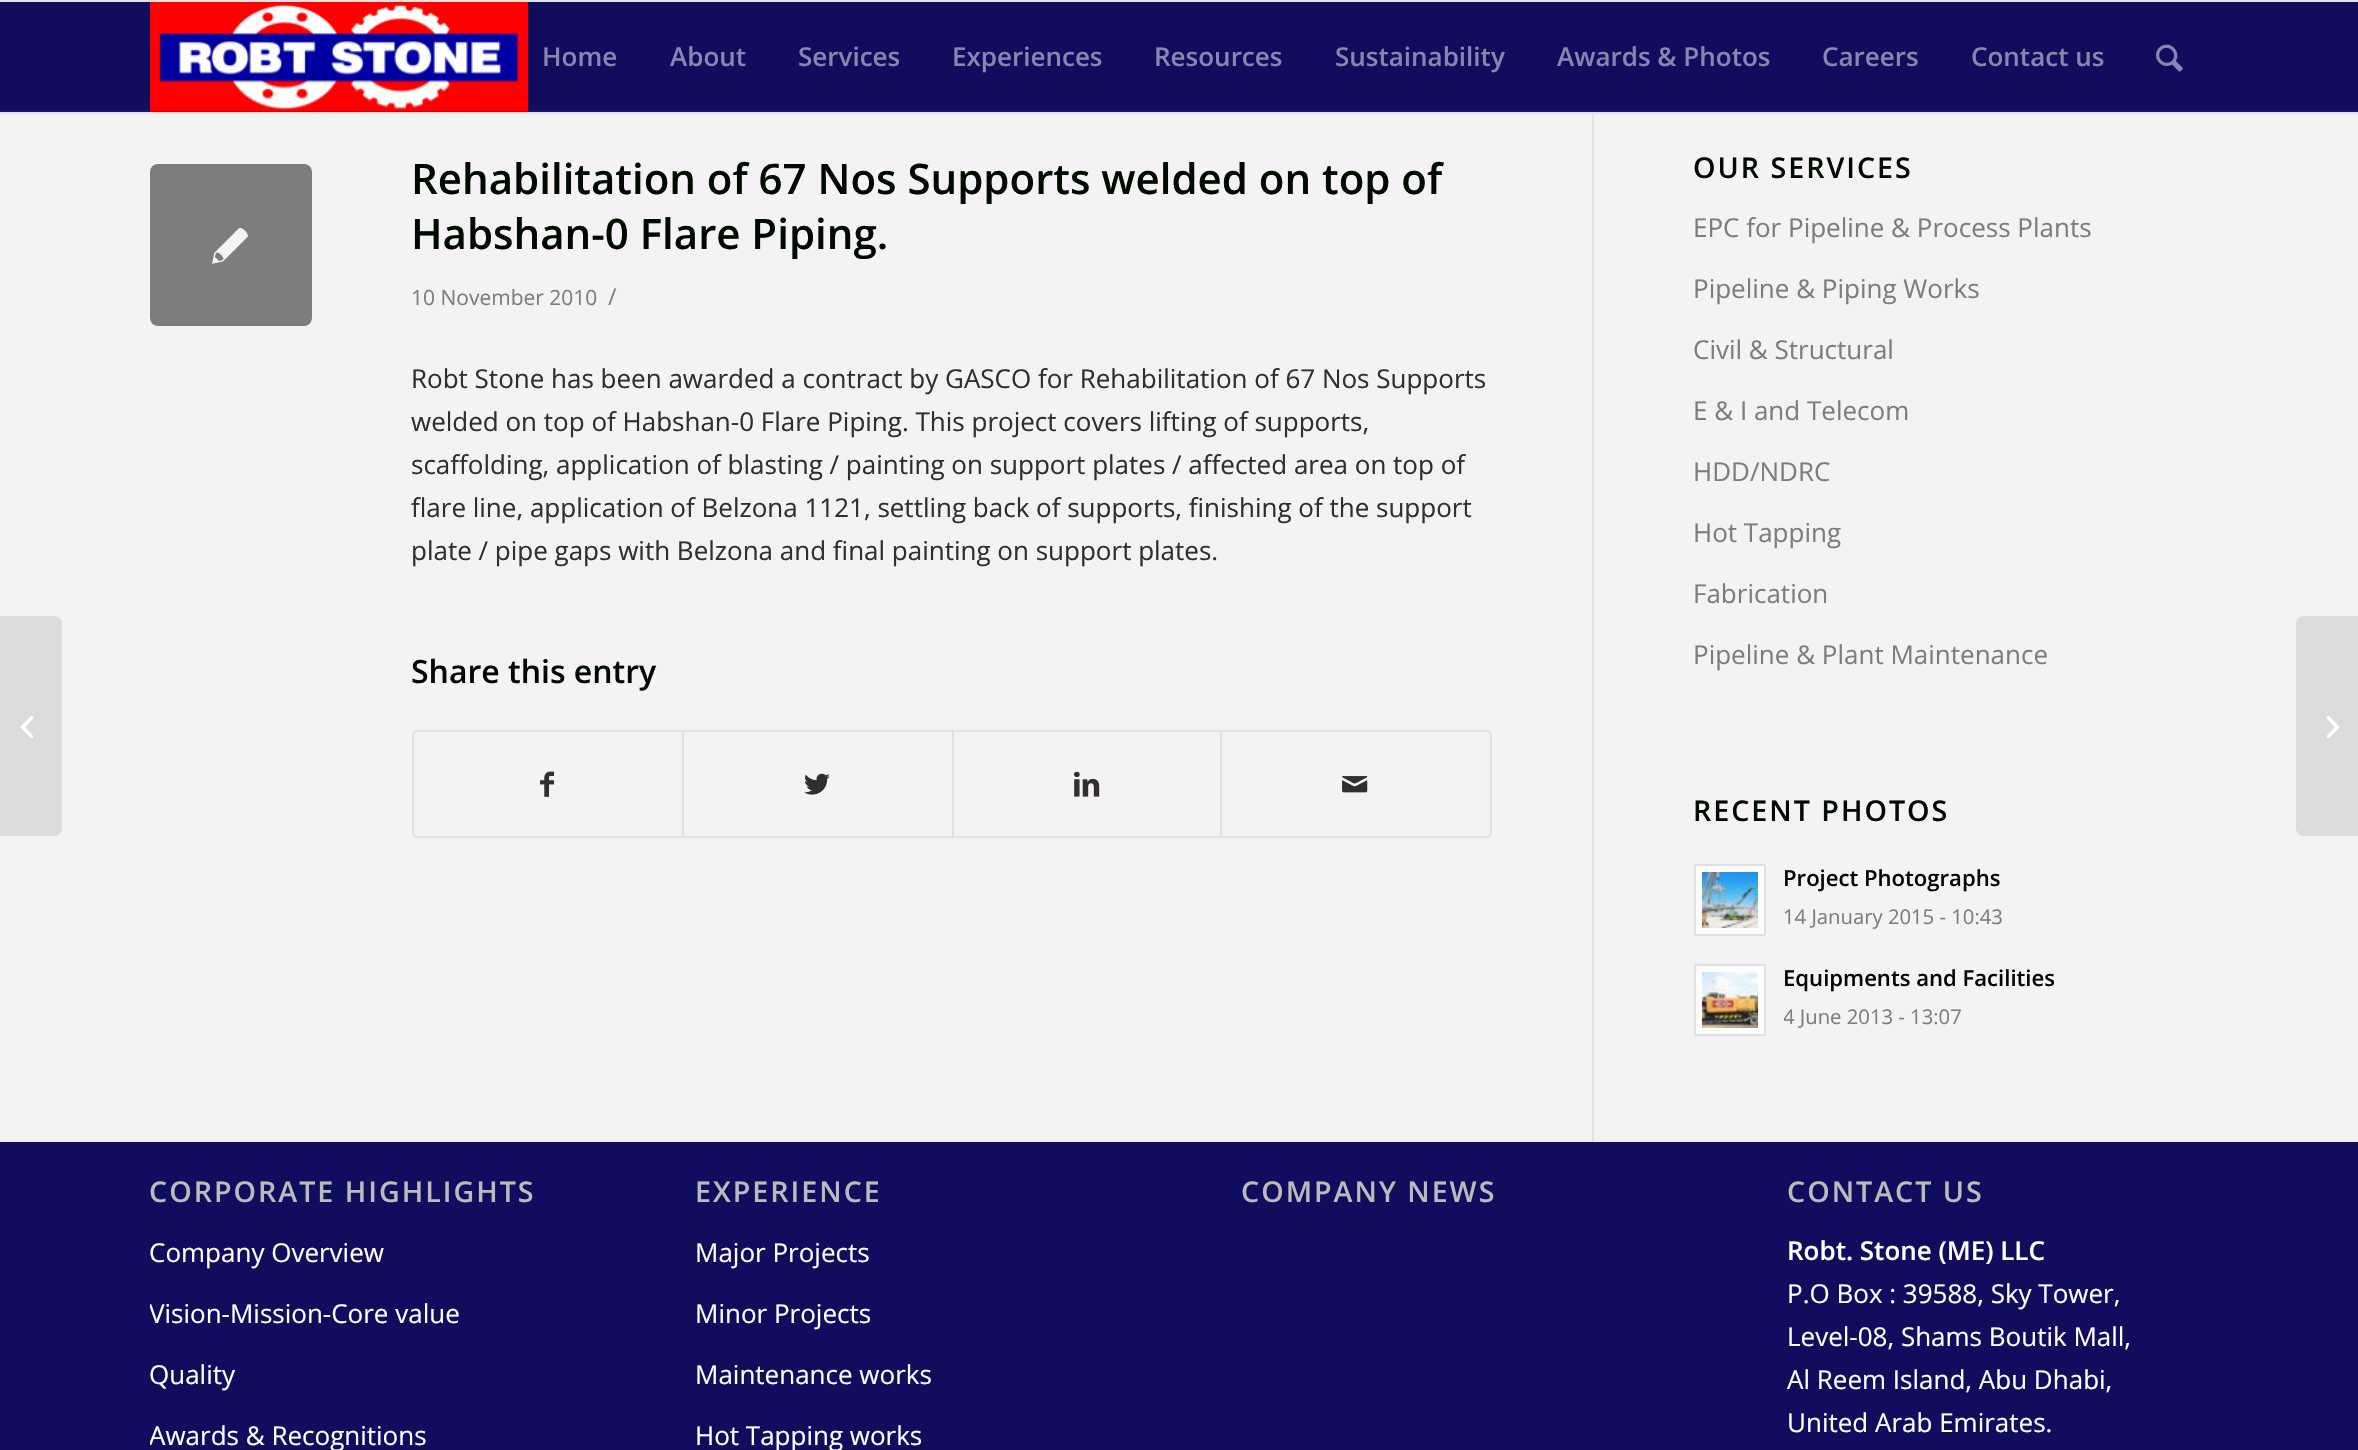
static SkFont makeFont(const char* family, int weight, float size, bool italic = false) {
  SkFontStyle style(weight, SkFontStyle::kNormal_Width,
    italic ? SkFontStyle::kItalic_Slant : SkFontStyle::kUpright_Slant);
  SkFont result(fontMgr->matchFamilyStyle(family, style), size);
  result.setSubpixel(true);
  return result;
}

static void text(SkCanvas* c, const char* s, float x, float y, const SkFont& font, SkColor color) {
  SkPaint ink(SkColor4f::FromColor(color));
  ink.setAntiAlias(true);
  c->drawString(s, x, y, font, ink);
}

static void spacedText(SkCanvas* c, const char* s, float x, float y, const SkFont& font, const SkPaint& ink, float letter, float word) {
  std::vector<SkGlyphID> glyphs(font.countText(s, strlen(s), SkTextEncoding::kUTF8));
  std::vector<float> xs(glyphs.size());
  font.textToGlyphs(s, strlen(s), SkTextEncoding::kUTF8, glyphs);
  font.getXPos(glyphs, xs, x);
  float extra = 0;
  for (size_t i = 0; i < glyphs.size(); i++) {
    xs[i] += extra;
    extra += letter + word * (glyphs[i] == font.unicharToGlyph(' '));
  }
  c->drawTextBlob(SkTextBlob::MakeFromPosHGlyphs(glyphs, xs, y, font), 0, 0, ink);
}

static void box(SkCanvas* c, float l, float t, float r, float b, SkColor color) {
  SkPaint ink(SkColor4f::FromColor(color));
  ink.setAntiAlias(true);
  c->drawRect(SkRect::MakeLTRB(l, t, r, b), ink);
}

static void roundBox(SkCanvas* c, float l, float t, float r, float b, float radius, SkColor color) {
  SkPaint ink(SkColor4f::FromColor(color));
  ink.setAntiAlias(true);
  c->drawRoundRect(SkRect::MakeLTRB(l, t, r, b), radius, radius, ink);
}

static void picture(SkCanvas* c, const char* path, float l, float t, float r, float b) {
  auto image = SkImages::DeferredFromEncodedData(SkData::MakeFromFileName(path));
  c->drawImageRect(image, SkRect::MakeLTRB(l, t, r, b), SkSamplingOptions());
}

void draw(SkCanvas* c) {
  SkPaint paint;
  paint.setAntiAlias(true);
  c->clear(0xff100c5e);
  box(c, 0, 0, 2358, 2, 0xffe1e1e1);
  box(c, 0, 114, 2358, 1142, 0xfff5f2f5);
  box(c, 1592, 112, 1594, 1142, 0xffe1e1e1);
  box(c, 0, 112, 2358, 114, 0xffe1e1e1);
  box(c, 0, 110, 2358, 112, 0xff1a1765);
  picture(c, "img_01.png", 150, 2, 528, 112);
  SkFont face1 = makeFont("Open Sans", 600, 26);
  text(c, "Home", 542, 66, face1, 0xff8886af);
  text(c, "About", 670, 66, face1, 0xff8886af);
  text(c, "Services", 798, 66, face1, 0xff8886af);
  text(c, "Experiences", 952, 66, face1, 0xff8886af);
  text(c, "Resources", 1154, 66, face1, 0xff8886af);
  text(c, "Sustainability", 1335, 66, face1, 0xff8886af);
  text(c, "Awards & Photos", 1557, 66, face1, 0xff8886af);
  text(c, "Careers", 1822, 66, face1, 0xff8886af);
  text(c, "Contact us", 1971, 66, face1, 0xff8886af);
  picture(c, "img_02.png", 2156, 44, 2183, 72);
  paint.setColor(0xffdddadd);
  c->drawPath(SkPathBuilder().moveTo(0, 616).lineTo(54, 616).cubicTo(58.5f, 616, 62, 619.5f, 62, 624).lineTo(62, 828).cubicTo(62, 832.5f, 58.5f, 836, 54, 836).lineTo(0, 836).close().detach(), paint);
  picture(c, "img_03.png", 20, 716, 34, 739);
  roundBox(c, 150, 164, 312, 326, 8, 0xff7b7e7b);
  picture(c, "img_04.png", 212, 227, 248, 264);
  SkFont face2 = makeFont("Open Sans", 600, 42);
  text(c, "Rehabilitation of 67 Nos Supports welded on top of", 411, 194, face2, 0xff000a00);
  text(c, "Habshan-0 Flare Piping.", 411, 249, face2, 0xff000a00);
  SkFont face3 = makeFont("Open Sans", 400, 21);
  text(c, "10 November 2010", 411, 305, face3, 0xff7b7e7b);
  SkFont face4 = makeFont("Open Sans", 400, 23);
  text(c, "/", 608, 305, face4, 0xff7b7e7b);
  SkFont face5 = makeFont("Open Sans", 400, 26);
  text(c, "Robt Stone has been awarded a contract by GASCO for Rehabilitation of 67 Nos Supports", 411, 388, face5, 0xff302e30);
  text(c, "welded on top of Habshan-0 Flare Piping. This project covers lifting of supports,", 411, 431, face5, 0xff302e30);
  text(c, "scaffolding, application of blasting / painting on support plates / affected area on top of", 411, 474, face5, 0xff302e30);
  text(c, "flare line, application of Belzona 1121, settling back of supports, finishing of the support", 411, 517, face5, 0xff302e30);
  text(c, "plate / pipe gaps with Belzona and final painting on support plates.", 411, 560, face5, 0xff302e30);
  SkFont face6 = makeFont("Open Sans", 600, 32);
  text(c, "Share this entry", 411, 683, face6, 0xff000a00);
  paint.setStyle(SkPaint::kStroke_Style);
  paint.setStrokeWidth(2);
  paint.setColor(0xffe1e1e1);
  c->drawRoundRect(SkRect::MakeLTRB(413, 731, 1491, 837), 5, 5, paint);
  picture(c, "img_05.png", 540, 771, 554, 797);
  box(c, 682, 732, 684, 836, 0xffe1e1e1);
  picture(c, "img_06.png", 804, 773, 830, 795);
  box(c, 952, 732, 954, 836, 0xffe1e1e1);
  picture(c, "img_07.png", 1074, 771, 1100, 797);
  box(c, 1220, 732, 1222, 836, 0xffe1e1e1);
  picture(c, "img_08.png", 1342, 776, 1368, 793);
  SkFont face7 = makeFont("Open Sans", 600, 28.6f);
  paint.setStyle(SkPaint::kFill_Style);
  paint.setColor(0xff000a00);
  spacedText(c, "OUR SERVICES", 1693, 178, face7, paint, 2, 0);
  text(c, "EPC for Pipeline & Process Plants", 1693, 237, face5, 0xff7b7e7b);
  text(c, "Pipeline & Piping Works", 1693, 298, face5, 0xff7b7e7b);
  text(c, "Civil & Structural", 1693, 359, face5, 0xff7b7e7b);
  text(c, "E & I and Telecom", 1693, 420, face5, 0xff7b7e7b);
  text(c, "HDD/NDRC", 1693, 481, face5, 0xff7b7e7b);
  text(c, "Hot Tapping", 1693, 542, face5, 0xff7b7e7b);
  text(c, "Fabrication", 1693, 603, face5, 0xff7b7e7b);
  text(c, "Pipeline & Plant Maintenance", 1693, 664, face5, 0xff7b7e7b);
  spacedText(c, "RECENT PHOTOS", 1693, 821, face7, paint, 2, 0);
  paint.setColor(0xfffcfcfc);
  c->drawRect(SkRect::MakeLTRB(1695, 865, 1765, 935), paint);
  paint.setStyle(SkPaint::kStroke_Style);
  paint.setColor(0xffe1e1e1);
  c->drawRect(SkRect::MakeLTRB(1695, 865, 1765, 935), paint);
  picture(c, "img_09.png", 1702, 872, 1758, 928);
  SkFont face8 = makeFont("Open Sans", 600, 22.1f);
  text(c, "Project Photographs", 1783, 886, face8, 0xff000a00);
  SkFont face9 = makeFont("Open Sans", 400, 20.25f);
  text(c, "14 January 2015 - 10:43", 1783, 924, face9, 0xff7b7e7b);
  paint.setStyle(SkPaint::kFill_Style);
  paint.setColor(0xfffcfcfc);
  c->drawRect(SkRect::MakeLTRB(1695, 965, 1765, 1035), paint);
  paint.setStyle(SkPaint::kStroke_Style);
  paint.setColor(0xffe1e1e1);
  c->drawRect(SkRect::MakeLTRB(1695, 965, 1765, 1035), paint);
  picture(c, "img_10.png", 1702, 972, 1758, 1028);
  text(c, "Equipments and Facilities", 1783, 986, face8, 0xff000a00);
  c->save();
  c->clipRect(SkRect::MakeLTRB(1784, 960, 2210, 1036));
  text(c, "4 June 2013 - 13:07", 1783, 1024, face9, 0xff7b7e7b);
  c->restore();
  paint.setStyle(SkPaint::kFill_Style);
  paint.setColor(0xffbbbbbb);
  spacedText(c, "CORPORATE HIGHLIGHTS", 149, 1202, face7, paint, 2, 0);
  text(c, "Company Overview", 149, 1262, face5, 0xffffffff);
  c->save();
  c->clipRect(SkRect::MakeLTRB(150, 1152, 572, 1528));
  text(c, "Vision-Mission-Core value", 149, 1323, face5, 0xffffffff);
  c->restore();
  text(c, "Quality", 149, 1384, face5, 0xffffffff);
  c->save();
  c->clipRect(SkRect::MakeLTRB(150, 1152, 572, 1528));
  text(c, "Awards & Recognitions", 149, 1445, face5, 0xffffffff);
  c->restore();
  spacedText(c, "EXPERIENCE", 695, 1202, face7, paint, 2, 0);
  text(c, "Major Projects", 695, 1262, face5, 0xffffffff);
  text(c, "Minor Projects", 695, 1323, face5, 0xffffffff);
  text(c, "Maintenance works", 695, 1384, face5, 0xffffffff);
  text(c, "Hot Tapping works", 695, 1445, face5, 0xffffffff);
  spacedText(c, "COMPANY NEWS", 1241, 1202, face7, paint, 2, 0);
  spacedText(c, "CONTACT US", 1787, 1202, face7, paint, 2, 0);
  text(c, "Robt. Stone (ME) LLC", 1787, 1260, face1, 0xffffffff);
  text(c, "P.O Box : 39588, Sky Tower,", 1787, 1303, face5, 0xffffffff);
  text(c, "Level-08, Shams Boutik Mall,", 1787, 1346, face5, 0xffffffff);
  text(c, "Al Reem Island, Abu Dhabi,", 1787, 1389, face5, 0xffffffff);
  text(c, "United Arab Emirates.", 1787, 1432, face5, 0xffffffff);
  paint.setColor(0xffdddadd);
  c->drawPath(SkPathBuilder().moveTo(2304, 616).lineTo(2358, 616).lineTo(2358, 836).lineTo(2304, 836).cubicTo(2299.5f, 836, 2296, 832.5f, 2296, 828).lineTo(2296, 624).cubicTo(2296, 619.5f, 2299.5f, 616, 2304, 616).close().detach(), paint);
  picture(c, "img_11.png", 2326, 716, 2340, 739);
}
